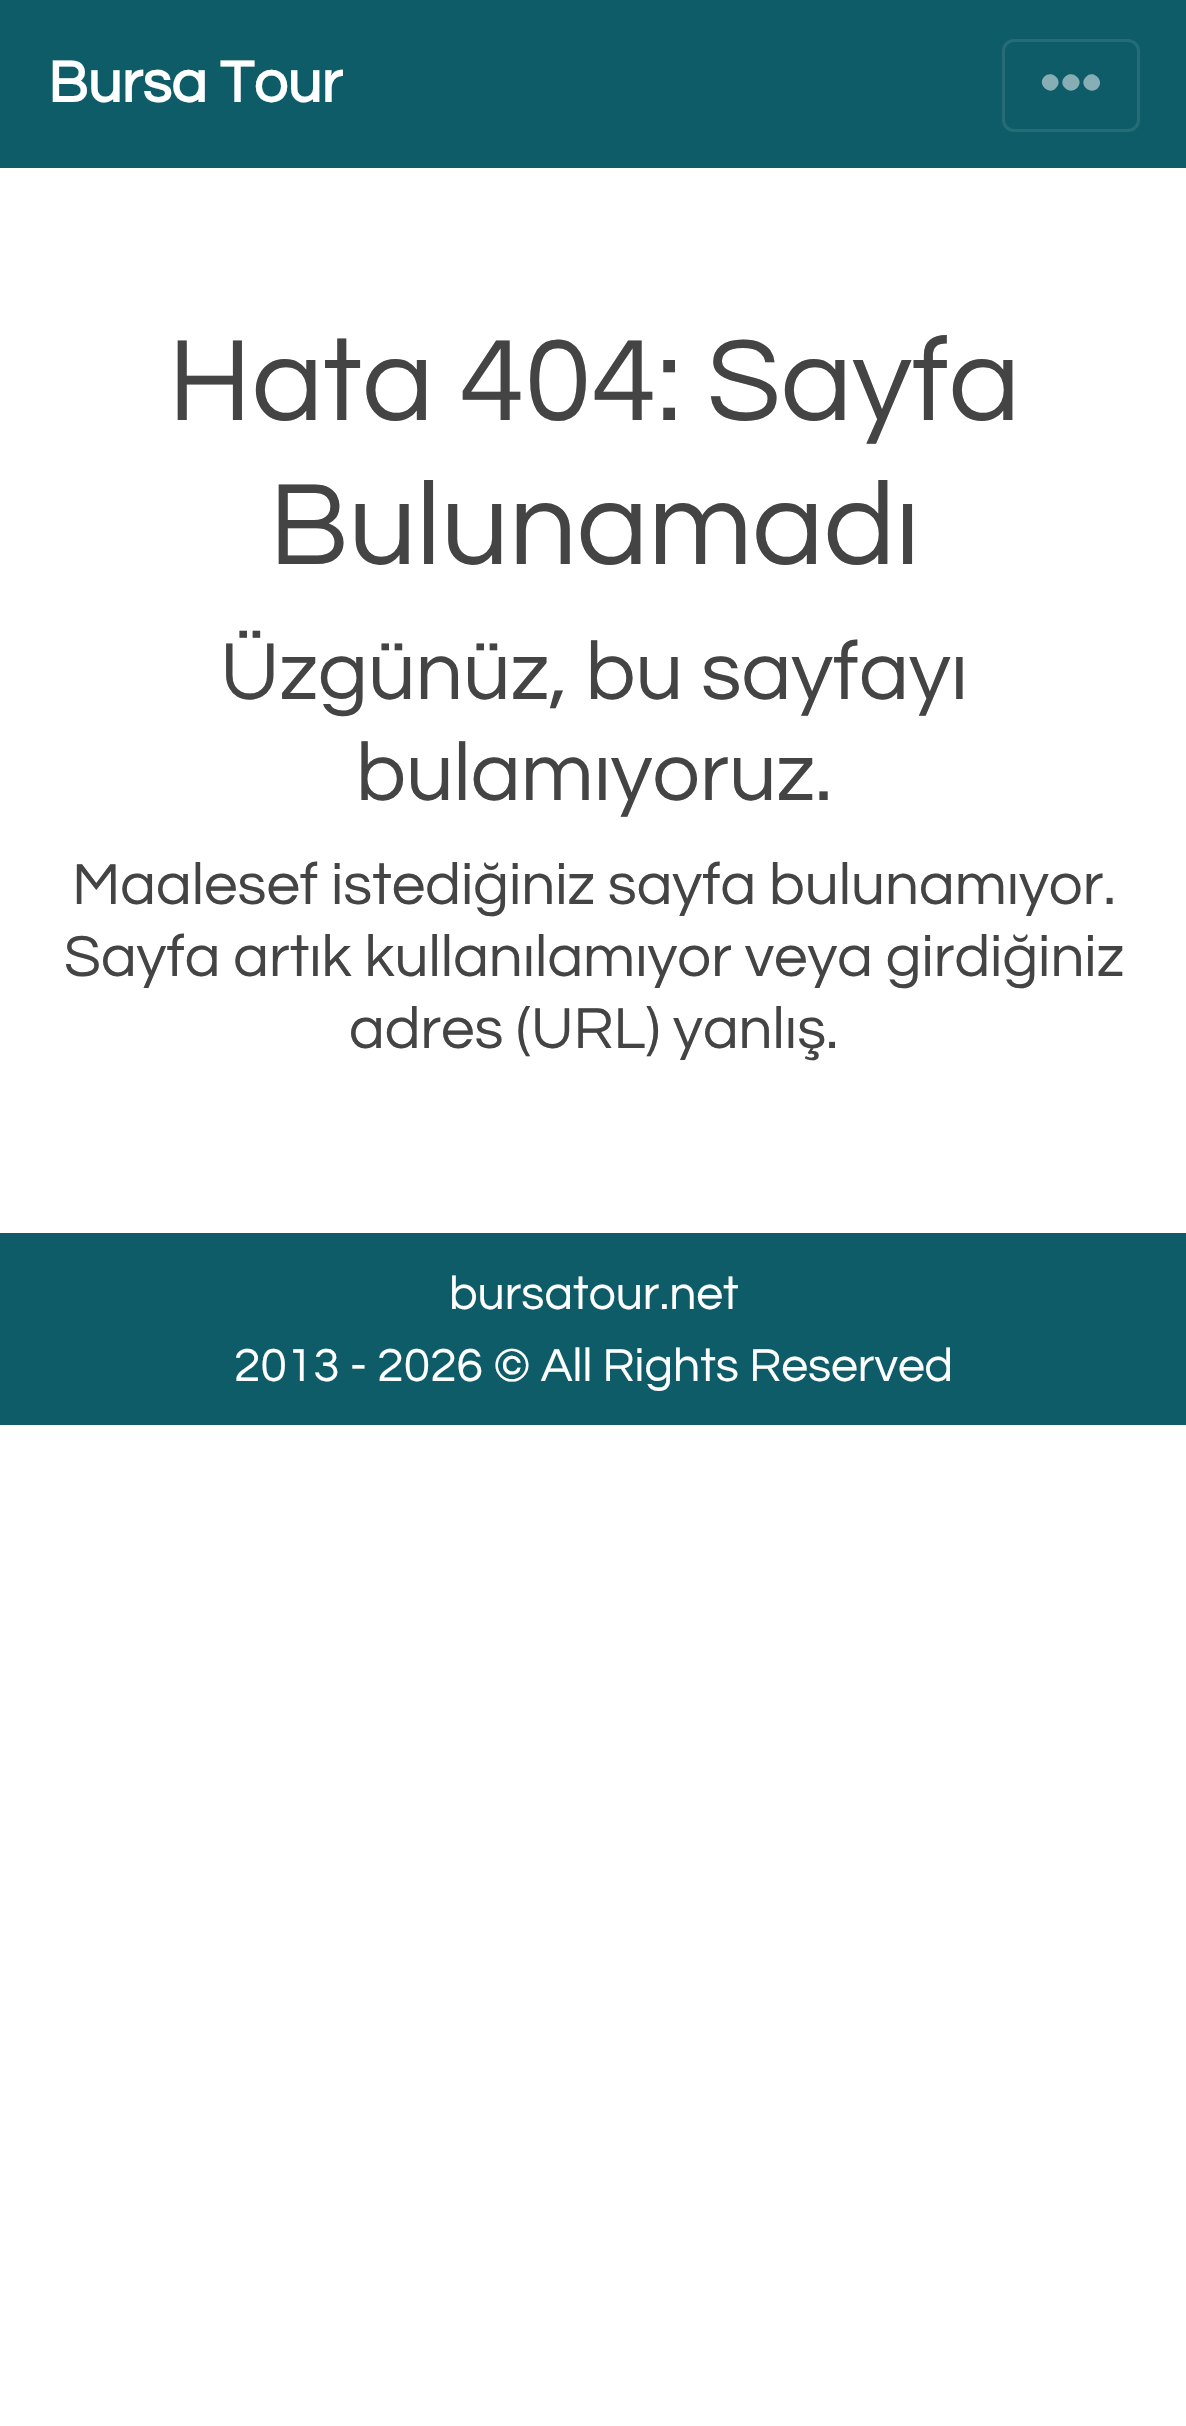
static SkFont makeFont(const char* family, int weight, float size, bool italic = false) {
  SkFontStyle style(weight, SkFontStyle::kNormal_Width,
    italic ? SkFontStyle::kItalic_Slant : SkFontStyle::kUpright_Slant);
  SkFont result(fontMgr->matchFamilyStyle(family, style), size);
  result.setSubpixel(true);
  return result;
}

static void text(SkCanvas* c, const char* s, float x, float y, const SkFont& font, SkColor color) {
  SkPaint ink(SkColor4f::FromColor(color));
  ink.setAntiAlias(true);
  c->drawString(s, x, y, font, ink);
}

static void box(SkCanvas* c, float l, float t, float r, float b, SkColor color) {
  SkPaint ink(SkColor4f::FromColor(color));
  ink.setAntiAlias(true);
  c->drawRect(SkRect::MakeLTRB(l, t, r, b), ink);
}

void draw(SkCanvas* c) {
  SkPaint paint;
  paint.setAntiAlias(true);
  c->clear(0xffffffff);
  box(c, 0, 0, 1186, 168, 0xff0d5c68);
  SkFont face1 = makeFont("Questrial", 700, 60);
  text(c, "Bursa Tour", 48, 102, face1, 0xffffffff);
  paint.setStyle(SkPaint::kStroke_Style);
  paint.setStrokeWidth(3);
  paint.setColor(0xff256c77);
  c->drawRoundRect(SkRect::MakeLTRB(1003.5f, 40.5f, 1138.5f, 130.5f), 10.5f, 10.5f, paint);
  paint.setStyle(SkPaint::kFill_Style);
  paint.setColor(0xff86aeb4);
  c->drawPath(SkPathBuilder().moveTo(1077, 77).cubicTo(1085, 84, 1073, 96, 1065, 88).cubicTo(1057, 81, 1069, 69, 1077, 77).close().moveTo(1086, 77).cubicTo(1093, 69, 1105, 81, 1098, 88).cubicTo(1090, 96, 1078, 84, 1086, 77).close().moveTo(1044, 77).cubicTo(1052, 69, 1064, 81, 1056, 88).cubicTo(1049, 96, 1037, 84, 1044, 77).close().detach(), paint);
  SkFont face2 = makeFont("Questrial", 400, 120);
  text(c, "Hata 404: Sayfa", 168, 420, face2, 0xff444444);
  text(c, "Bulunamadı", 269, 564, face2, 0xff444444);
  SkFont face3 = makeFont("Questrial", 400, 84);
  text(c, "Üzgünüz, bu sayfayı", 220, 699, face3, 0xff444444);
  text(c, "bulamıyoruz.", 356, 800, face3, 0xff444444);
  SkFont face4 = makeFont("Questrial", 400, 60);
  text(c, "Maalesef istediğiniz sayfa bulunamıyor.", 72, 904, face4, 0xff444444);
  text(c, "Sayfa artık kullanılamıyor veya girdiğiniz", 64, 976, face4, 0xff444444);
  text(c, "adres (URL) yanlış.", 349, 1048, face4, 0xff444444);
  box(c, 0, 1233, 1186, 1425, 0xff0d5c68);
  SkFont face5 = makeFont("Questrial", 400, 48);
  text(c, "bursatour.net", 449, 1309, face5, 0xffffffff);
  text(c, "2013 - 2026 © All Rights Reserved", 234, 1381, face5, 0xffffffff);
}
